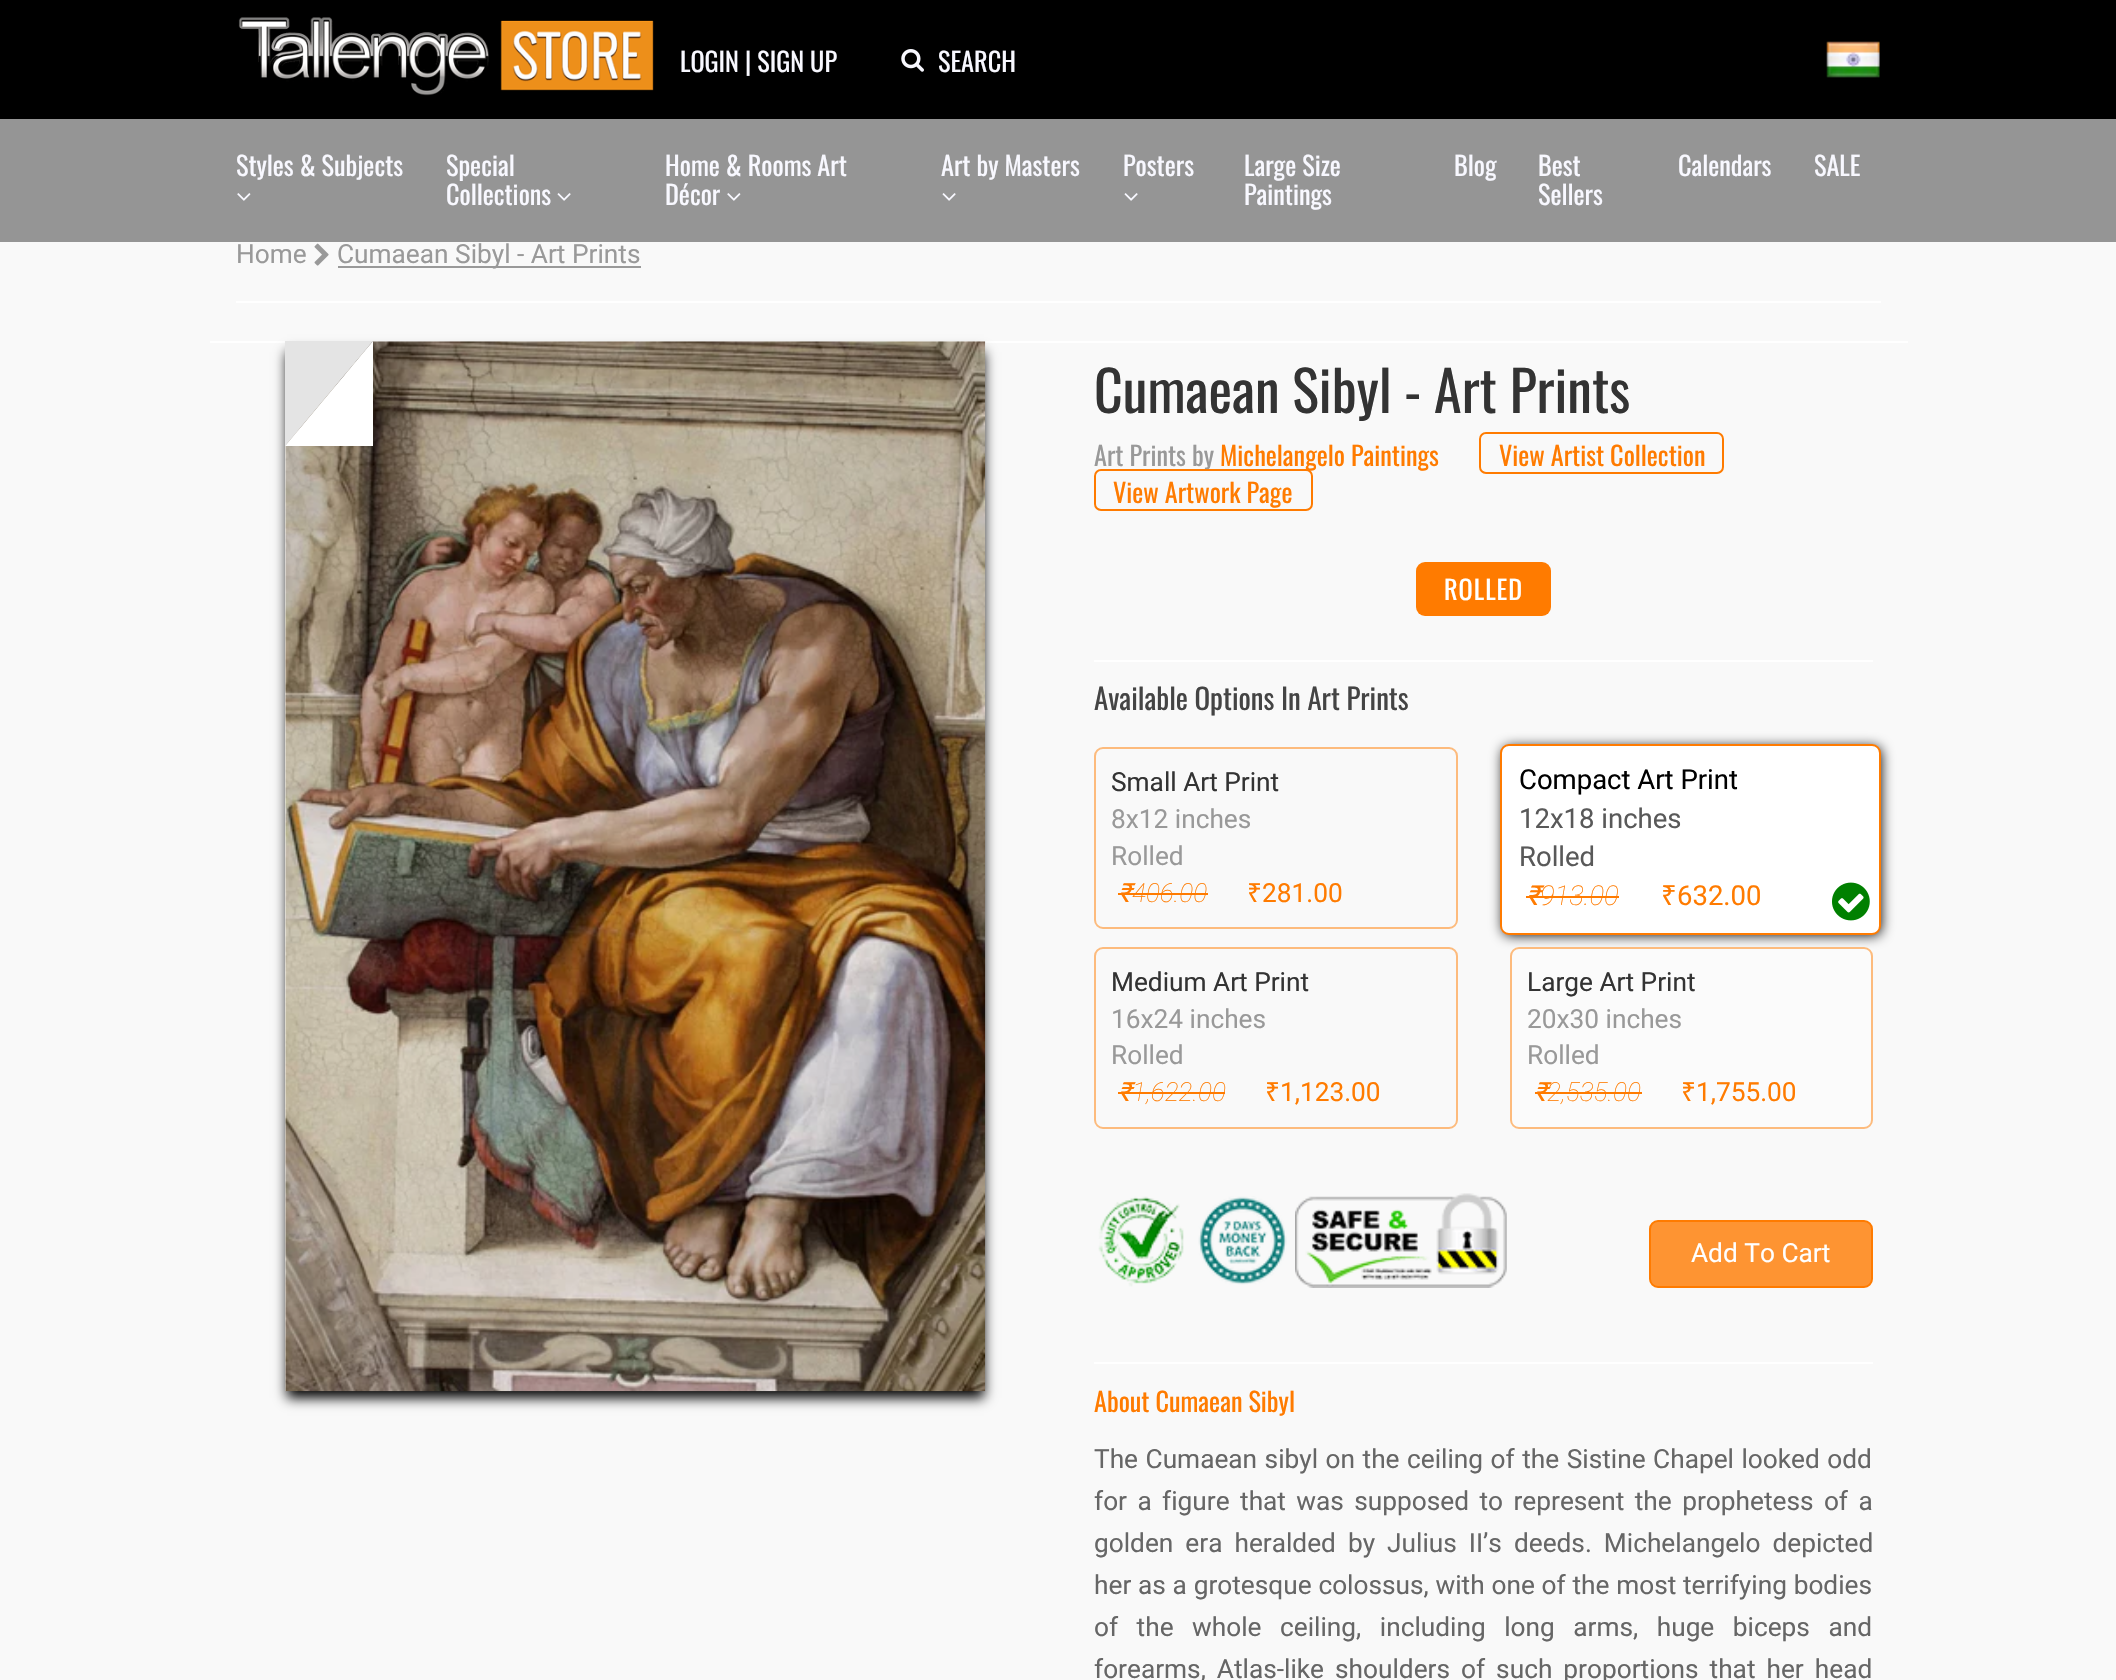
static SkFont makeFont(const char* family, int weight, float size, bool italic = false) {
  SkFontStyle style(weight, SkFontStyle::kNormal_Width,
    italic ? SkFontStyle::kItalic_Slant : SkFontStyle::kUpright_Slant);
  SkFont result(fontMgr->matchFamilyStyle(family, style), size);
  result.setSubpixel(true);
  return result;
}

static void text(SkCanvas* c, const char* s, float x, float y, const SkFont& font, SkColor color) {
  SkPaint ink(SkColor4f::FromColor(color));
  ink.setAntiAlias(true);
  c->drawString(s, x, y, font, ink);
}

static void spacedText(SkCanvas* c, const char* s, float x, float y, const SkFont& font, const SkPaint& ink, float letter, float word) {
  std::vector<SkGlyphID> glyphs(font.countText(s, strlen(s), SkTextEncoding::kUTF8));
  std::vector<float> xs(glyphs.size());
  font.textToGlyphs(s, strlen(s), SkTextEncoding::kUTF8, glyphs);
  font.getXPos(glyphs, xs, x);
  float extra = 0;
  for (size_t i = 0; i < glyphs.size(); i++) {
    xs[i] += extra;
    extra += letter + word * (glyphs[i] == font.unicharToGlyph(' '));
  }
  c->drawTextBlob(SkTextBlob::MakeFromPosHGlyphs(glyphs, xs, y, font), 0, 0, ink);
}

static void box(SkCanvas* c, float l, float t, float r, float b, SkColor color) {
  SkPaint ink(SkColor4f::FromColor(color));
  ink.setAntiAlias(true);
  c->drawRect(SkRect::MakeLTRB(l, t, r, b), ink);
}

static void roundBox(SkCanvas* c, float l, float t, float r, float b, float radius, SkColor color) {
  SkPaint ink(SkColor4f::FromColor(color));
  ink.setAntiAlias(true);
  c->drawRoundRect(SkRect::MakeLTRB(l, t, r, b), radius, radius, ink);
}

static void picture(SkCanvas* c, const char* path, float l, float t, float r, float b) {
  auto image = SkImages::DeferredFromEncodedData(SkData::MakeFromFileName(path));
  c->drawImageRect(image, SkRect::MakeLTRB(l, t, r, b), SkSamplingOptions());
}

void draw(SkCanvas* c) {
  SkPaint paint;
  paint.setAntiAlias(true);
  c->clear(0xfff9f9f9);
  box(c, 0, 0, 2116, 119, 0xff000000);
  picture(c, "img_01.png", 238, 17, 654, 96);
  SkFont face1 = makeFont("Oswald", 400, 26.25f);
  text(c, "LOGIN | SIGN UP", 680, 72, face1, 0xfff8f8ff);
  picture(c, "img_02.png", 901, 49, 924, 72);
  text(c, "SEARCH", 938, 72, face1, 0xfff8f8ff);
  picture(c, "img_03.png", 1826, 41, 1880, 78);
  box(c, 0, 119, 2116, 242, 0xff959595);
  text(c, "Styles & Subjects", 236, 176, face1, 0xfff8f8ff);
  picture(c, "img_04.png", 237, 193, 251, 201);
  text(c, "Special", 446, 176, face1, 0xfff8f8ff);
  text(c, "Collections", 446, 205, face1, 0xfff8f8ff);
  picture(c, "img_05.png", 557, 193, 571, 201);
  text(c, "Home & Rooms Art", 665, 176, face1, 0xfff8f8ff);
  text(c, "Décor", 665, 205, face1, 0xfff8f8ff);
  picture(c, "img_04.png", 727, 193, 741, 201);
  text(c, "Art by Masters", 941, 176, face1, 0xfff8f8ff);
  picture(c, "img_05.png", 942, 193, 956, 201);
  text(c, "Posters", 1123, 176, face1, 0xfff8f8ff);
  picture(c, "img_05.png", 1124, 193, 1138, 201);
  text(c, "Large Size", 1244, 176, face1, 0xfff8f8ff);
  text(c, "Paintings", 1244, 205, face1, 0xfff8f8ff);
  text(c, "Blog", 1454, 176, face1, 0xfff8f8ff);
  text(c, "Best", 1538, 176, face1, 0xfff8f8ff);
  text(c, "Sellers", 1538, 205, face1, 0xfff8f8ff);
  text(c, "Calendars", 1678, 176, face1, 0xfff8f8ff);
  text(c, "SALE", 1814, 176, face1, 0xfff8f8ff);
  SkFont face2 = makeFont("Roboto", 400, 26.25f);
  text(c, "Home", 236, 263, face2, 0xff999999);
  picture(c, "img_06.png", 314, 243, 329, 266);
  box(c, 338, 266, 641, 268, 0xff999999);
  text(c, "Cumaean Sibyl - Art Prints", 337, 263, face2, 0xff999999);
  box(c, 236, 301, 1881, 303, 0xffffffff);
  box(c, 210, 341, 1908, 343, 0xffffffff);
  paint.setColor(0xff000000);
  paint.setMaskFilter(SkMaskFilter::MakeBlur(kNormal_SkBlurStyle, 6));
  c->drawRect(SkRect::MakeLTRB(287, 352, 984, 1398), paint);
  paint.setMaskFilter(nullptr);
  box(c, 285, 341, 985, 1391, 0xffffffff);
  picture(c, "img_07.png", 285, 341, 986, 1392);
  paint.setColor(0xffffffff);
  c->drawPath(SkPathBuilder().moveTo(373, 446).lineTo(285, 446).lineTo(373, 341).close().detach(), paint);
  paint.setColor(0xffe4e4e4);
  c->drawPath(SkPathBuilder().moveTo(285, 446).lineTo(285, 341).lineTo(373, 341).close().detach(), paint);
  SkFont face3 = makeFont("Oswald", 400, 56);
  text(c, "Cumaean Sibyl - Art Prints", 1094, 413, face3, 0xff333333);
  text(c, "Art Prints by", 1094, 466, face1, 0xff999999);
  text(c, "Michelangelo Paintings", 1220, 466, face1, 0xffff7b00);
  paint.setStyle(SkPaint::kStroke_Style);
  paint.setStrokeWidth(2);
  paint.setColor(0xffff7b00);
  c->drawRoundRect(SkRect::MakeLTRB(1480, 433, 1723, 473), 6, 6, paint);
  text(c, "View Artist Collection", 1499, 466, face1, 0xffff7b00);
  c->drawRoundRect(SkRect::MakeLTRB(1095, 470, 1312, 510), 6, 6, paint);
  text(c, "View Artwork Page", 1113, 503, face1, 0xffff7b00);
  roundBox(c, 1416, 562, 1551, 616, 9, 0xffff7b00);
  paint.setStyle(SkPaint::kFill_Style);
  paint.setColor(0xffffffff);
  spacedText(c, "ROLLED", 1444, 600, face1, paint, 1, 0);
  box(c, 1094, 660, 1873, 662, 0xffffffff);
  SkFont face4 = makeFont("Oswald", 400, 28.9f);
  text(c, "Available Options In Art Prints", 1094, 710, face4, 0xff444444);
  paint.setStyle(SkPaint::kStroke_Style);
  paint.setColor(0xfffdbb7d);
  c->drawRoundRect(SkRect::MakeLTRB(1095, 748, 1457, 928), 8, 8, paint);
  text(c, "Small Art Print", 1111, 791, face2, 0xff333333);
  text(c, "8x12 inches", 1111, 828, face2, 0xff999999);
  text(c, "Rolled", 1111, 865, face2, 0xff999999);
  SkFont face5 = makeFont("Roboto", 400, 26.25f, true);
  text(c, "₹", 1118, 902, face5, 0xffff7b00);
  SkFont face6 = makeFont("Roboto", 100, 26.25f, true);
  text(c, "406.00", 1132, 902, face6, 0xffff7b00);
  box(c, 1118, 893, 1208, 895, 0xffff7b00);
  SkFont face7 = makeFont("Noto Sans", 400, 26.25f);
  text(c, "₹", 1247, 902, face7, 0xffff7b00);
  text(c, "281.00", 1262, 902, face2, 0xffff7b00);
  paint.setStyle(SkPaint::kFill_Style);
  paint.setColor(0xff000000);
  paint.setMaskFilter(SkMaskFilter::MakeBlur(kNormal_SkBlurStyle, 6.5f));
  c->drawRoundRect(SkRect::MakeLTRB(1503, 747, 1881, 935), 7, 7, paint);
  paint.setMaskFilter(nullptr);
  paint.setColor(0xffffffff);
  c->drawRoundRect(SkRect::MakeLTRB(1501, 745, 1880, 934), 8, 8, paint);
  paint.setStyle(SkPaint::kStroke_Style);
  paint.setColor(0xffff7b00);
  c->drawRoundRect(SkRect::MakeLTRB(1501, 745, 1880, 934), 8, 8, paint);
  SkFont face8 = makeFont("Roboto", 400, 27.5f);
  text(c, "Compact Art Print", 1519, 789, face8, 0xff000000);
  text(c, "12x18 inches", 1519, 828, face8, 0xff595959);
  text(c, "Rolled", 1519, 866, face8, 0xff595959);
  SkFont face9 = makeFont("Roboto", 400, 27.5f, true);
  text(c, "₹", 1526, 905, face9, 0xffff7b00);
  SkFont face10 = makeFont("Roboto", 100, 27.5f, true);
  text(c, "913.00", 1540, 905, face10, 0xffff7b00);
  box(c, 1526, 896, 1619, 898, 0xffff7b00);
  SkFont face11 = makeFont("Noto Sans", 400, 27.5f);
  text(c, "₹", 1661, 905, face11, 0xffff7b00);
  text(c, "632.00", 1677, 905, face8, 0xffff7b00);
  picture(c, "img_08.png", 1832, 882, 1870, 921);
  paint.setColor(0xfffdbb7d);
  c->drawRoundRect(SkRect::MakeLTRB(1095, 948, 1457, 1128), 8, 8, paint);
  text(c, "Medium Art Print", 1111, 991, face2, 0xff333333);
  text(c, "16x24 inches", 1111, 1028, face2, 0xff999999);
  text(c, "Rolled", 1111, 1064, face2, 0xff999999);
  text(c, "₹", 1118, 1101, face5, 0xffff7b00);
  text(c, "1,622.00", 1132, 1101, face6, 0xffff7b00);
  box(c, 1118, 1092, 1225, 1094, 0xffff7b00);
  text(c, "₹", 1265, 1101, face7, 0xffff7b00);
  text(c, "1,123.00", 1280, 1101, face2, 0xffff7b00);
  roundBox(c, 1510, 947, 1873, 1129, 9, 0xfffbfbfb);
  paint.setColor(0x80ff7b00);
  c->drawRoundRect(SkRect::MakeLTRB(1511, 948, 1872, 1128), 8, 8, paint);
  text(c, "Large Art Print", 1527, 991, face2, 0xff333333);
  text(c, "20x30 inches", 1527, 1028, face2, 0xff999999);
  text(c, "Rolled", 1527, 1064, face2, 0xff999999);
  text(c, "₹", 1534, 1101, face5, 0xffff7b00);
  text(c, "2,535.00", 1547, 1101, face6, 0xffff7b00);
  box(c, 1535, 1092, 1642, 1094, 0xffff7b00);
  text(c, "₹", 1681, 1101, face7, 0xffff7b00);
  text(c, "1,755.00", 1696, 1101, face2, 0xffff7b00);
  picture(c, "img_09.png", 1098, 1196, 1184, 1287);
  picture(c, "img_10.png", 1198, 1196, 1287, 1285);
  picture(c, "img_11.png", 1295, 1193, 1507, 1288);
  paint.setStyle(SkPaint::kFill_Style);
  paint.setColor(0xfffe9432);
  c->drawRoundRect(SkRect::MakeLTRB(1650, 1221, 1872, 1287), 8, 8, paint);
  paint.setStyle(SkPaint::kStroke_Style);
  paint.setColor(0xffff7b00);
  c->drawRoundRect(SkRect::MakeLTRB(1650, 1221, 1872, 1287), 8, 8, paint);
  text(c, "Add To Cart", 1691, 1262, face2, 0xffffffff);
  box(c, 1094, 1362, 1873, 1364, 0xffffffff);
  text(c, "About Cumaean Sibyl", 1094, 1412, face1, 0xffff7b00);
  paint.setStyle(SkPaint::kFill_Style);
  paint.setColor(0xff666666);
  spacedText(c, "The Cumaean sibyl on the ceiling of the Sistine Chapel looked odd", 1094, 1468, face2, paint, 0, 1);
  spacedText(c, "for a figure that was supposed to represent the prophetess of a", 1094, 1510, face2, paint, 0, 3.9f);
  spacedText(c, "golden era heralded by Julius II’s deeds. Michelangelo depicted", 1094, 1552, face2, paint, 0, 5.5f);
  spacedText(c, "her as a grotesque colossus, with one of the most terrifying bodies", 1094, 1594, face2, paint, 0, 0.25f);
  spacedText(c, "of the whole ceiling, including long arms, huge biceps and", 1094, 1636, face2, paint, 0, 12);
  spacedText(c, "forearms, Atlas-like shoulders of such proportions that her head", 1094, 1678, face2, paint, 0, 4.5f);
}
